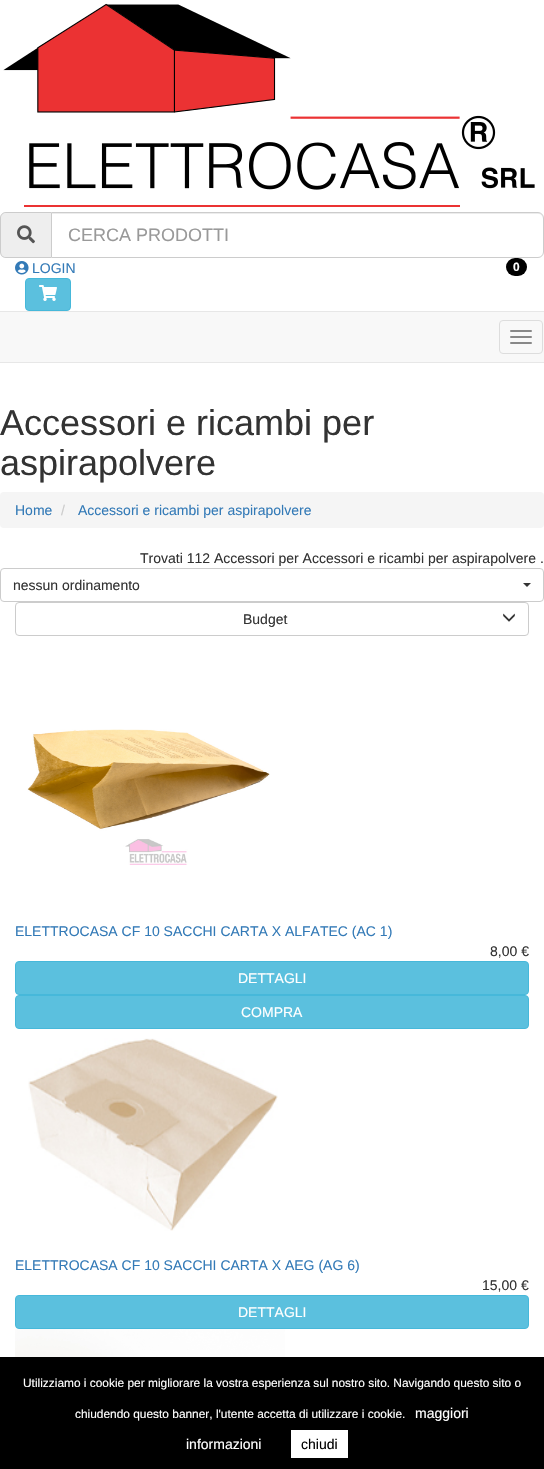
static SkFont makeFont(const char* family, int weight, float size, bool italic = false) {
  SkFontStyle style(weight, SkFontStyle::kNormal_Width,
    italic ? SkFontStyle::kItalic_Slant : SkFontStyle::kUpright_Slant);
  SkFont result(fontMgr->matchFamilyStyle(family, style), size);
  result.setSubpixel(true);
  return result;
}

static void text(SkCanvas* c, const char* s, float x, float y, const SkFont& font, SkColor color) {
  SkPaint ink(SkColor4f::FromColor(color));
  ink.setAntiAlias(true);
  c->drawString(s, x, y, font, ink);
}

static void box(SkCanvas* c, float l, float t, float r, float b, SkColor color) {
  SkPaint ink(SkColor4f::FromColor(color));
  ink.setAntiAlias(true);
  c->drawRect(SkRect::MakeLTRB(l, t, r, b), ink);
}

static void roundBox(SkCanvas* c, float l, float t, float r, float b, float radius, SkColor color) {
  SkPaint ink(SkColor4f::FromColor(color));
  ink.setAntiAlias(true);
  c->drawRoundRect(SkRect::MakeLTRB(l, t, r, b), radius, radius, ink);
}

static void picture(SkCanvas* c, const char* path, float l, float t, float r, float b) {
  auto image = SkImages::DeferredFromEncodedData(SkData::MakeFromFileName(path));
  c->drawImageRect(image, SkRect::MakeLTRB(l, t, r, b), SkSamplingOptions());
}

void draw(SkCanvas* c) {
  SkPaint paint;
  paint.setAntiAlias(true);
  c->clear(0xffffffff);
  picture(c, "img_01.png", 3, 3, 535, 207);
  paint.setColor(0xffeeeeee);
  c->drawPath(SkPathBuilder().moveTo(6, 212).lineTo(51, 212).lineTo(51, 258).lineTo(6, 258).cubicTo(2.5f, 258, 0, 255.5f, 0, 252).lineTo(0, 218).cubicTo(0, 214.5f, 2.5f, 212, 6, 212).close().detach(), paint);
  paint.setColor(0xffcccccc);
  c->drawPath(SkPathBuilder(SkPathFillType::kEvenOdd).moveTo(6, 212).lineTo(51, 212).lineTo(51, 258).lineTo(6, 258).cubicTo(3, 258, 0, 255, 0, 252).lineTo(0, 218).cubicTo(0, 215, 3, 212, 6, 212).close().moveTo(6, 213).lineTo(51, 213).lineTo(51, 257).lineTo(6, 257).cubicTo(3, 257, 1, 255, 1, 252).lineTo(1, 218).cubicTo(1, 215, 3, 213, 6, 213).close().detach(), paint);
  picture(c, "img_02.png", 17, 225, 35, 244);
  paint.setColor(0xffececec);
  c->drawPath(SkPathBuilder().moveTo(52, 214).lineTo(538, 214).cubicTo(541, 214, 543, 216, 543, 219).lineTo(543, 218).cubicTo(543, 215, 541, 213, 538, 213).lineTo(52, 213).close().detach(), paint);
  paint.setStyle(SkPaint::kStroke_Style);
  paint.setStrokeWidth(1);
  paint.setColor(0xffcccccc);
  c->drawPath(SkPathBuilder().moveTo(51.5f, 212.5f).lineTo(538, 212.5f).cubicTo(541, 212.5f, 543.5f, 215, 543.5f, 218).lineTo(543.5f, 252).cubicTo(543.5f, 255, 541, 257.5f, 538, 257.5f).lineTo(51.5f, 257.5f).close().detach(), paint);
  SkFont face1 = makeFont("Liberation Sans", 400, 18);
  text(c, "CERCA PRODOTTI", 68, 241, face1, 0xff999999);
  picture(c, "img_03.png", 15, 261, 29, 275);
  SkFont face2 = makeFont("Liberation Sans", 400, 14);
  text(c, "LOGIN", 32, 273, face2, 0xff337ab7);
  roundBox(c, 506, 258, 527, 276, 9, 0xff000000);
  SkFont face3 = makeFont("Liberation Sans", 700, 12);
  text(c, "0", 513, 271, face3, 0xffffffff);
  paint.setStyle(SkPaint::kFill_Style);
  paint.setColor(0xff5bc0de);
  c->drawRoundRect(SkRect::MakeLTRB(25.5f, 278.5f, 70.5f, 310.5f), 3.5f, 3.5f, paint);
  paint.setStyle(SkPaint::kStroke_Style);
  paint.setColor(0xff46b8da);
  c->drawRoundRect(SkRect::MakeLTRB(25.5f, 278.5f, 70.5f, 310.5f), 3.5f, 3.5f, paint);
  picture(c, "img_04.png", 39, 285, 57, 301);
  paint.setStyle(SkPaint::kFill_Style);
  paint.setColor(0xfff8f8f8);
  c->drawRect(SkRect::MakeLTRB(-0.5f, 311.5f, 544.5f, 362.5f), paint);
  paint.setStyle(SkPaint::kStroke_Style);
  paint.setColor(0xffe7e7e7);
  c->drawRect(SkRect::MakeLTRB(-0.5f, 311.5f, 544.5f, 362.5f), paint);
  paint.setColor(0xffdddddd);
  c->drawRoundRect(SkRect::MakeLTRB(499.5f, 320.5f, 542.5f, 353.5f), 3.5f, 3.5f, paint);
  roundBox(c, 510, 330, 532, 332, 1, 0xff888888);
  roundBox(c, 510, 336, 532, 338, 1, 0xff888888);
  roundBox(c, 510, 342, 532, 344, 1, 0xff888888);
  SkFont face4 = makeFont("Liberation Sans", 400, 36);
  text(c, "Accessori e ricambi per", 0, 435, face4, 0xff333333);
  text(c, "aspirapolvere", 0, 475, face4, 0xff333333);
  roundBox(c, 0, 492, 544, 528, 4, 0xfff5f5f5);
  text(c, "Home", 15, 515, face2, 0xff337ab7);
  text(c, "/", 61, 515, face2, 0xffcccccc);
  text(c, "Accessori e ricambi per aspirapolvere", 78, 515, face2, 0xff337ab7);
  text(c, "Trovati 112 Accessori per Accessori e ricambi per aspirapolvere .", 140, 563, face2, 0xff333333);
  paint.setColor(0xffcccccc);
  c->drawRoundRect(SkRect::MakeLTRB(0.5f, 568.5f, 543.5f, 601.5f), 3.5f, 3.5f, paint);
  text(c, "nessun ordinamento", 13, 590, face2, 0xff333333);
  paint.setStyle(SkPaint::kFill_Style);
  paint.setColor(0xff333333);
  c->drawPath(SkPathBuilder().moveTo(523, 583).lineTo(531, 583).lineTo(527, 587).close().detach(), paint);
  paint.setStyle(SkPaint::kStroke_Style);
  paint.setColor(0xffcccccc);
  c->drawRoundRect(SkRect::MakeLTRB(15.5f, 602.5f, 528.5f, 635.5f), 3.5f, 3.5f, paint);
  text(c, "Budget", 243, 624, face2, 0xff333333);
  picture(c, "img_05.png", 503, 613, 515, 622);
  picture(c, "img_06.png", 27, 729, 270, 865);
  text(c, "ELETTROCASA CF 10 SACCHI CARTA X ALFATEC (AC 1)", 15, 936, face2, 0xff337ab7);
  text(c, "8,00 €", 490, 956, face2, 0xff333333);
  paint.setStyle(SkPaint::kFill_Style);
  paint.setColor(0xff5bc0de);
  c->drawRoundRect(SkRect::MakeLTRB(15.5f, 961.5f, 528.5f, 994.5f), 3.5f, 3.5f, paint);
  paint.setStyle(SkPaint::kStroke_Style);
  paint.setColor(0xff46b8da);
  c->drawRoundRect(SkRect::MakeLTRB(15.5f, 961.5f, 528.5f, 994.5f), 3.5f, 3.5f, paint);
  text(c, "DETTAGLI", 238, 983, face2, 0xffffffff);
  paint.setStyle(SkPaint::kFill_Style);
  paint.setColor(0xff5bc0de);
  c->drawRoundRect(SkRect::MakeLTRB(15.5f, 995.5f, 528.5f, 1028.5f), 3.5f, 3.5f, paint);
  paint.setStyle(SkPaint::kStroke_Style);
  paint.setColor(0xff46b8da);
  c->drawRoundRect(SkRect::MakeLTRB(15.5f, 995.5f, 528.5f, 1028.5f), 3.5f, 3.5f, paint);
  text(c, "COMPRA", 241, 1017, face2, 0xffffffff);
  picture(c, "img_07.png", 28, 1038, 278, 1231);
  text(c, "ELETTROCASA CF 10 SACCHI CARTA X AEG (AG 6)", 15, 1270, face2, 0xff337ab7);
  text(c, "15,00 €", 482, 1290, face2, 0xff333333);
  paint.setStyle(SkPaint::kFill_Style);
  paint.setColor(0xff5bc0de);
  c->drawRoundRect(SkRect::MakeLTRB(15.5f, 1295.5f, 528.5f, 1328.5f), 3.5f, 3.5f, paint);
  paint.setStyle(SkPaint::kStroke_Style);
  paint.setColor(0xff46b8da);
  c->drawRoundRect(SkRect::MakeLTRB(15.5f, 1295.5f, 528.5f, 1328.5f), 3.5f, 3.5f, paint);
  text(c, "DETTAGLI", 238, 1317, face2, 0xffffffff);
  picture(c, "img_08.png", 15, 1329, 285, 1357);
  box(c, 0, 1357, 544, 1469, 0xff000000);
  SkFont face5 = makeFont("Liberation Sans", 400, 11.9f);
  text(c, "Utilizziamo i cookie per migliorare la vostra esperienza sul nostro sito. Navigando questo sito o", 23, 1387, face5, 0xffffffff);
  text(c, "chiudendo questo banner, l'utente accetta di utilizzare i cookie.", 75, 1418, face5, 0xffffffff);
  text(c, "maggiori", 415, 1418, face2, 0xffffffff);
  text(c, "informazioni", 186, 1449, face2, 0xffffffff);
  box(c, 291, 1430, 348, 1458, 0xffffffff);
  text(c, "chiudi", 301, 1449, face2, 0xff000000);
}
